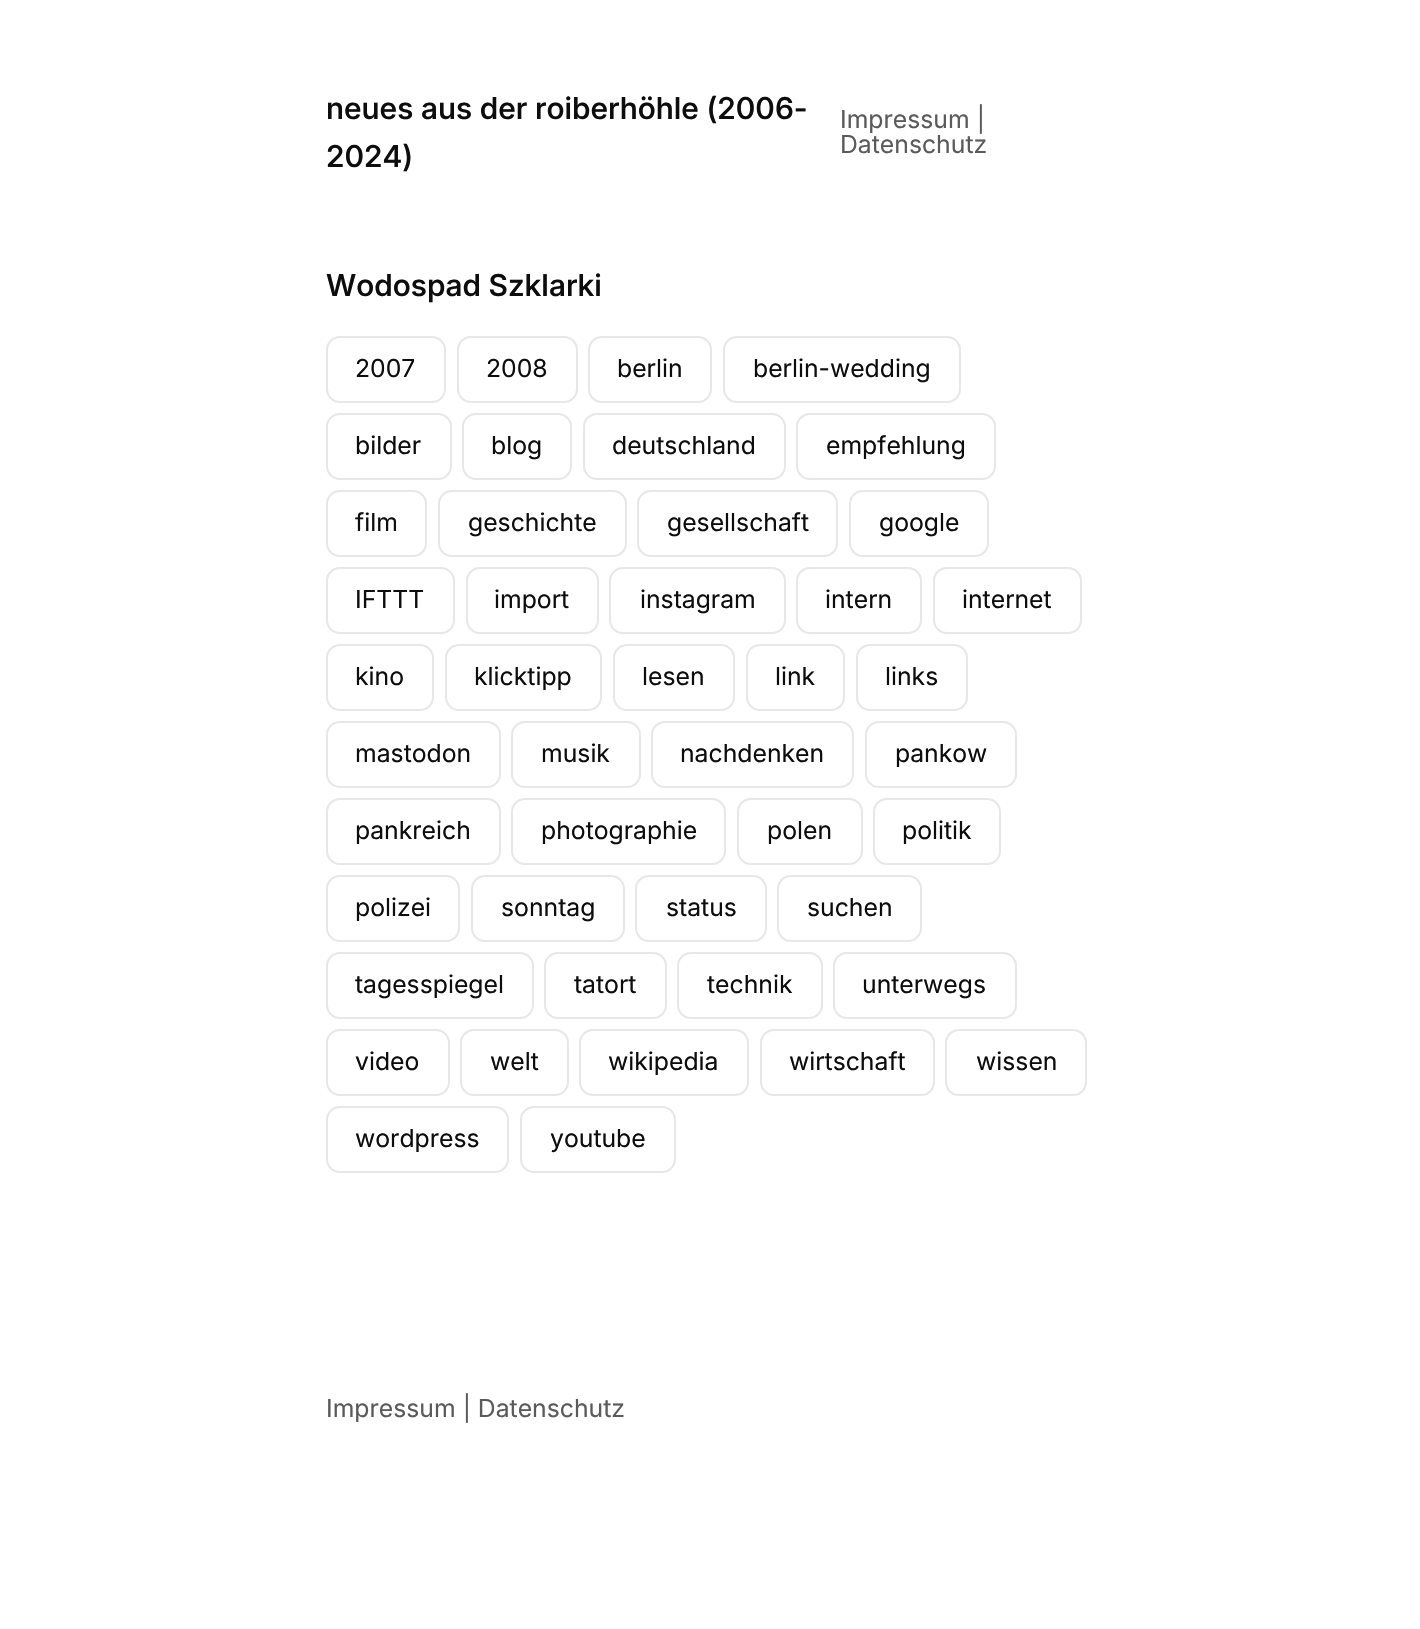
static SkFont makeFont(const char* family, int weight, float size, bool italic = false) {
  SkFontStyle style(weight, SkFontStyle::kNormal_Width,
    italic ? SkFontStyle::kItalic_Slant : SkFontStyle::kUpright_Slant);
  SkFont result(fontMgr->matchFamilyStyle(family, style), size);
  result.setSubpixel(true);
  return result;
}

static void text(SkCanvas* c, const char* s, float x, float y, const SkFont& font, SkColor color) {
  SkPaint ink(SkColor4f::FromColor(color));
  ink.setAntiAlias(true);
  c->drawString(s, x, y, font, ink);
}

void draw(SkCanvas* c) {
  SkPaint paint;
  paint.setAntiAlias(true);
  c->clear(0xffffffff);
  SkFont face1 = makeFont("Inter", 500, 30.1f);
  text(c, "neues aus der roiberhöhle (2006-", 326, 119, face1, 0xff0d0d0d);
  text(c, "2024)", 326, 167, face1, 0xff0d0d0d);
  SkFont face2 = makeFont("Inter", 400, 24.75f);
  text(c, "Impressum |", 840, 128, face2, 0xff5a5a5a);
  text(c, "Datenschutz", 840, 153, face2, 0xff5a5a5a);
  text(c, "Wodospad Szklarki", 326, 296, face1, 0xff0d0d0d);
  paint.setStyle(SkPaint::kStroke_Style);
  paint.setStrokeWidth(2);
  paint.setColor(0xffe7e7e7);
  c->drawRoundRect(SkRect::MakeLTRB(327, 337, 445, 402), 13, 13, paint);
  text(c, "2007", 355, 377, face2, 0xff0d0d0d);
  c->drawRoundRect(SkRect::MakeLTRB(458, 337, 577, 402), 13, 13, paint);
  text(c, "2008", 486, 377, face2, 0xff0d0d0d);
  c->drawRoundRect(SkRect::MakeLTRB(589, 337, 711, 402), 13, 13, paint);
  text(c, "berlin", 617, 377, face2, 0xff0d0d0d);
  c->drawRoundRect(SkRect::MakeLTRB(724, 337, 960, 402), 13, 13, paint);
  text(c, "berlin-wedding", 753, 377, face2, 0xff0d0d0d);
  c->drawRoundRect(SkRect::MakeLTRB(327, 414, 451, 479), 13, 13, paint);
  text(c, "bilder", 355, 454, face2, 0xff0d0d0d);
  c->drawRoundRect(SkRect::MakeLTRB(463, 414, 571, 479), 13, 13, paint);
  text(c, "blog", 491, 454, face2, 0xff0d0d0d);
  c->drawRoundRect(SkRect::MakeLTRB(584, 414, 785, 479), 13, 13, paint);
  text(c, "deutschland", 612, 454, face2, 0xff0d0d0d);
  c->drawRoundRect(SkRect::MakeLTRB(797, 414, 995, 479), 13, 13, paint);
  text(c, "empfehlung", 826, 454, face2, 0xff0d0d0d);
  c->drawRoundRect(SkRect::MakeLTRB(327, 491, 426, 556), 13, 13, paint);
  text(c, "film", 355, 531, face2, 0xff0d0d0d);
  c->drawRoundRect(SkRect::MakeLTRB(439, 491, 626, 556), 13, 13, paint);
  text(c, "geschichte", 468, 531, face2, 0xff0d0d0d);
  c->drawRoundRect(SkRect::MakeLTRB(638, 491, 837, 556), 13, 13, paint);
  text(c, "gesellschaft", 667, 531, face2, 0xff0d0d0d);
  c->drawRoundRect(SkRect::MakeLTRB(850, 491, 988, 556), 13, 13, paint);
  text(c, "google", 879, 531, face2, 0xff0d0d0d);
  c->drawRoundRect(SkRect::MakeLTRB(327, 568, 454, 633), 13, 13, paint);
  text(c, "IFTTT", 355, 608, face2, 0xff0d0d0d);
  c->drawRoundRect(SkRect::MakeLTRB(467, 568, 598, 633), 13, 13, paint);
  text(c, "import", 494, 608, face2, 0xff0d0d0d);
  c->drawRoundRect(SkRect::MakeLTRB(610, 568, 785, 633), 13, 13, paint);
  text(c, "instagram", 640, 608, face2, 0xff0d0d0d);
  c->drawRoundRect(SkRect::MakeLTRB(797, 568, 921, 633), 13, 13, paint);
  text(c, "intern", 825, 608, face2, 0xff0d0d0d);
  c->drawRoundRect(SkRect::MakeLTRB(934, 568, 1081, 633), 13, 13, paint);
  text(c, "internet", 962, 608, face2, 0xff0d0d0d);
  c->drawRoundRect(SkRect::MakeLTRB(327, 645, 433, 710), 13, 13, paint);
  text(c, "kino", 355, 685, face2, 0xff0d0d0d);
  c->drawRoundRect(SkRect::MakeLTRB(446, 645, 601, 710), 13, 13, paint);
  text(c, "klicktipp", 474, 685, face2, 0xff0d0d0d);
  c->drawRoundRect(SkRect::MakeLTRB(614, 645, 734, 710), 13, 13, paint);
  text(c, "lesen", 642, 685, face2, 0xff0d0d0d);
  c->drawRoundRect(SkRect::MakeLTRB(747, 645, 844, 710), 13, 13, paint);
  text(c, "link", 775, 685, face2, 0xff0d0d0d);
  c->drawRoundRect(SkRect::MakeLTRB(857, 645, 967, 710), 13, 13, paint);
  text(c, "links", 885, 685, face2, 0xff0d0d0d);
  c->drawRoundRect(SkRect::MakeLTRB(327, 722, 500, 787), 13, 13, paint);
  text(c, "mastodon", 355, 762, face2, 0xff0d0d0d);
  c->drawRoundRect(SkRect::MakeLTRB(512, 722, 640, 787), 13, 13, paint);
  text(c, "musik", 541, 762, face2, 0xff0d0d0d);
  c->drawRoundRect(SkRect::MakeLTRB(652, 722, 853, 787), 13, 13, paint);
  text(c, "nachdenken", 680, 762, face2, 0xff0d0d0d);
  c->drawRoundRect(SkRect::MakeLTRB(866, 722, 1016, 787), 13, 13, paint);
  text(c, "pankow", 895, 762, face2, 0xff0d0d0d);
  c->drawRoundRect(SkRect::MakeLTRB(327, 799, 500, 864), 13, 13, paint);
  text(c, "pankreich", 355, 839, face2, 0xff0d0d0d);
  c->drawRoundRect(SkRect::MakeLTRB(512, 799, 725, 864), 13, 13, paint);
  text(c, "photographie", 541, 839, face2, 0xff0d0d0d);
  c->drawRoundRect(SkRect::MakeLTRB(738, 799, 862, 864), 13, 13, paint);
  text(c, "polen", 767, 839, face2, 0xff0d0d0d);
  c->drawRoundRect(SkRect::MakeLTRB(874, 799, 1000, 864), 13, 13, paint);
  text(c, "politik", 902, 839, face2, 0xff0d0d0d);
  c->drawRoundRect(SkRect::MakeLTRB(327, 876, 459, 941), 13, 13, paint);
  text(c, "polizei", 355, 916, face2, 0xff0d0d0d);
  c->drawRoundRect(SkRect::MakeLTRB(472, 876, 624, 941), 13, 13, paint);
  text(c, "sonntag", 501, 916, face2, 0xff0d0d0d);
  c->drawRoundRect(SkRect::MakeLTRB(636, 876, 766, 941), 13, 13, paint);
  text(c, "status", 666, 916, face2, 0xff0d0d0d);
  c->drawRoundRect(SkRect::MakeLTRB(778, 876, 921, 941), 13, 13, paint);
  text(c, "suchen", 807, 916, face2, 0xff0d0d0d);
  c->drawRoundRect(SkRect::MakeLTRB(327, 953, 533, 1018), 13, 13, paint);
  text(c, "tagesspiegel", 355, 993, face2, 0xff0d0d0d);
  c->drawRoundRect(SkRect::MakeLTRB(545, 953, 666, 1018), 13, 13, paint);
  text(c, "tatort", 574, 993, face2, 0xff0d0d0d);
  c->drawRoundRect(SkRect::MakeLTRB(678, 953, 822, 1018), 13, 13, paint);
  text(c, "technik", 707, 993, face2, 0xff0d0d0d);
  c->drawRoundRect(SkRect::MakeLTRB(834, 953, 1016, 1018), 13, 13, paint);
  text(c, "unterwegs", 862, 993, face2, 0xff0d0d0d);
  c->drawRoundRect(SkRect::MakeLTRB(327, 1030, 449, 1095), 13, 13, paint);
  text(c, "video", 355, 1070, face2, 0xff0d0d0d);
  c->drawRoundRect(SkRect::MakeLTRB(461, 1030, 568, 1095), 13, 13, paint);
  text(c, "welt", 490, 1070, face2, 0xff0d0d0d);
  c->drawRoundRect(SkRect::MakeLTRB(580, 1030, 748, 1095), 13, 13, paint);
  text(c, "wikipedia", 608, 1070, face2, 0xff0d0d0d);
  c->drawRoundRect(SkRect::MakeLTRB(761, 1030, 934, 1095), 13, 13, paint);
  text(c, "wirtschaft", 789, 1070, face2, 0xff0d0d0d);
  c->drawRoundRect(SkRect::MakeLTRB(946, 1030, 1086, 1095), 13, 13, paint);
  text(c, "wissen", 976, 1070, face2, 0xff0d0d0d);
  c->drawRoundRect(SkRect::MakeLTRB(327, 1107, 508, 1172), 13, 13, paint);
  text(c, "wordpress", 355, 1147, face2, 0xff0d0d0d);
  c->drawRoundRect(SkRect::MakeLTRB(521, 1107, 675, 1172), 13, 13, paint);
  text(c, "youtube", 550, 1147, face2, 0xff0d0d0d);
  text(c, "Impressum | Datenschutz", 326, 1417, face2, 0xff5a5a5a);
}
